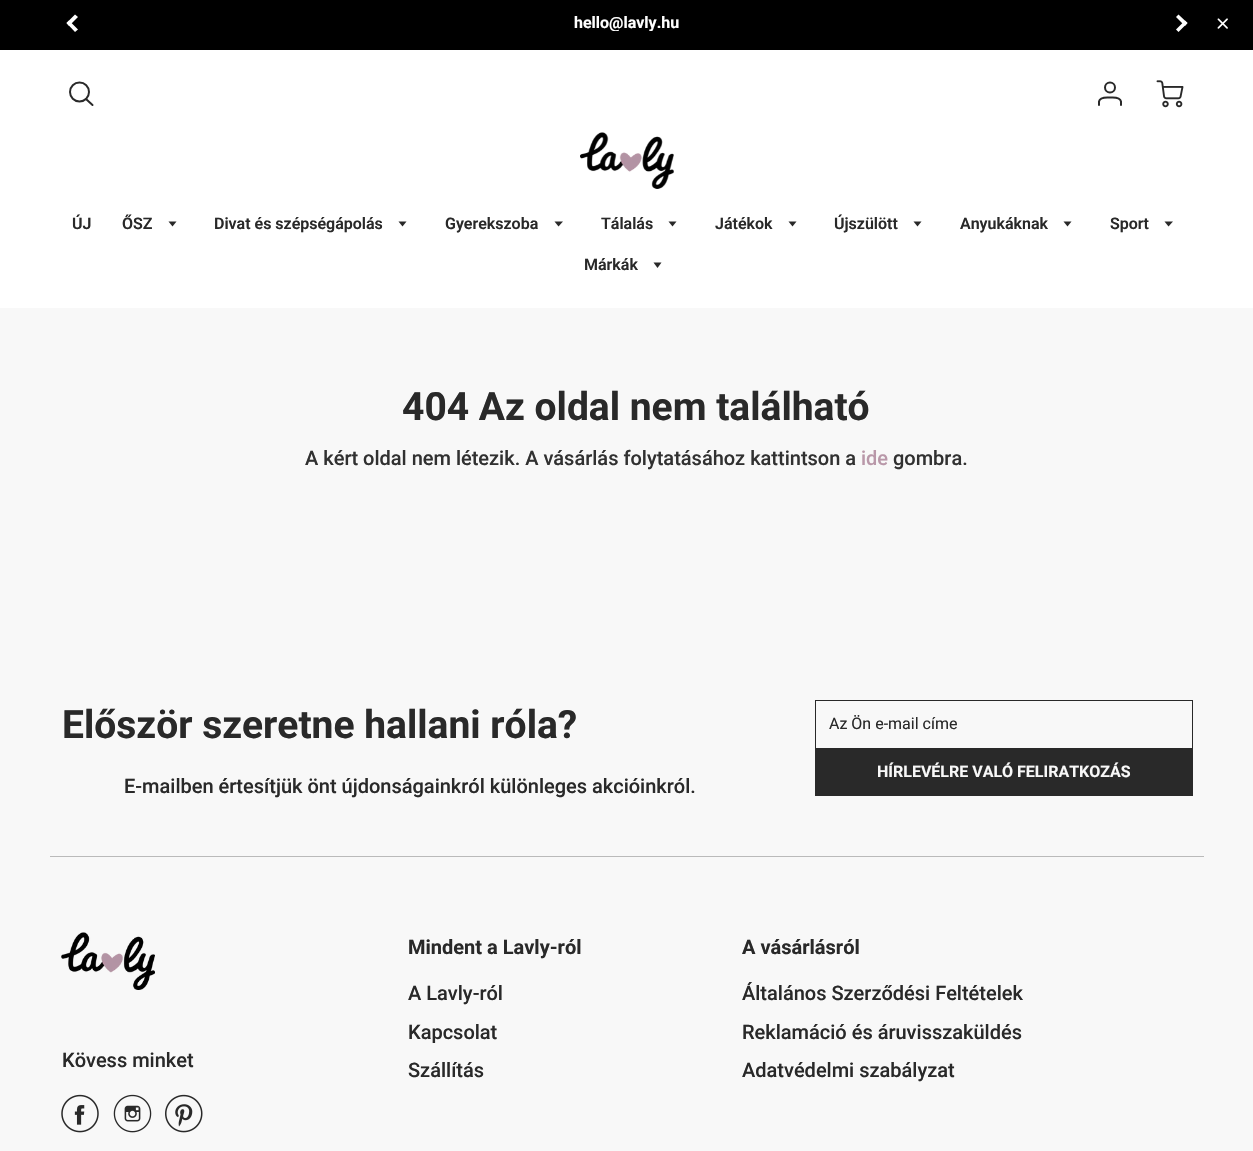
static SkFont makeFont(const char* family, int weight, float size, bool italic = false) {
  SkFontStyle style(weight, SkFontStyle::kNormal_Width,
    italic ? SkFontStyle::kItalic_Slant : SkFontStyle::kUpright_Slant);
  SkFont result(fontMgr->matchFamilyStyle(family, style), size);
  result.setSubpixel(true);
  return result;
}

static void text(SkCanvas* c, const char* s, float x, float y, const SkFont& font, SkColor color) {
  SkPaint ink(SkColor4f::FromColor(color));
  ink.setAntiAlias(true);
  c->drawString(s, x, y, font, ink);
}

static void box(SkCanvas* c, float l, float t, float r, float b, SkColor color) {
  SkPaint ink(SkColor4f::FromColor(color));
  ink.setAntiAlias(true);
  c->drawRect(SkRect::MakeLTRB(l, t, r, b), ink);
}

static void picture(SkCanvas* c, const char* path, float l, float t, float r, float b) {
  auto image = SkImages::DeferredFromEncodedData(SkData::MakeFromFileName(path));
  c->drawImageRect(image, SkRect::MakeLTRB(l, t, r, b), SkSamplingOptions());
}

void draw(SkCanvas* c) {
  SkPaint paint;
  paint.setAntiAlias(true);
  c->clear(0xfff8f8f8);
  box(c, 0, 0, 1253, 50, 0xff000000);
  paint.setColor(0xffffffff);
  c->drawPath(SkPathBuilder().moveTo(75, 32).lineTo(66.5f, 23).lineTo(69, 20.5f).lineTo(78, 29.5f).close().detach(), paint);
  c->drawPath(SkPathBuilder().moveTo(69, 26).lineTo(66.5f, 23).lineTo(75, 14.5f).lineTo(78, 17).close().detach(), paint);
  c->save();
  c->clipRect(SkRect::MakeLTRB(75, 13, 1179, 31));
  SkFont face1 = makeFont("Roboto", 700, 16);
  text(c, "hello@lavly.hu", 574, 28, face1, 0xffffffff);
  c->restore();
  c->drawPath(SkPathBuilder().moveTo(1178.5f, 14.5f).lineTo(1187.5f, 23).lineTo(1185, 26).lineTo(1176, 17).close().detach(), paint);
  c->drawPath(SkPathBuilder().moveTo(1185, 20.5f).lineTo(1187.5f, 23).lineTo(1178.5f, 32).lineTo(1176, 29.5f).close().detach(), paint);
  picture(c, "img_01.png", 1217, 18, 1228, 29);
  box(c, 0, 50, 1253, 308, 0xffffffff);
  paint.setStyle(SkPaint::kStroke_Style);
  paint.setStrokeWidth(2);
  paint.setColor(0xff292929);
  c->drawCircle(79.5f, 92, 9.5f, paint);
  paint.setStrokeCap(SkPaint::kRound_Cap);
  paint.setStrokeJoin(SkPaint::kRound_Join);
  c->drawPath(SkPathBuilder().moveTo(92.5f, 105).lineTo(86, 99).detach(), paint);
  paint.setStrokeCap(SkPaint::kButt_Cap);
  paint.setStrokeJoin(SkPaint::kMiter_Join);
  c->drawCircle(1110, 87.5f, 5, paint);
  paint.setStrokeCap(SkPaint::kRound_Cap);
  paint.setStrokeJoin(SkPaint::kRound_Join);
  c->drawPath(SkPathBuilder().moveTo(1121, 105).lineTo(1121, 101.5f).cubicTo(1120, 96.5f, 1113.5f, 97.5f, 1110, 97.5f).cubicTo(1106.5f, 97.5f, 1100, 96.5f, 1099, 101.5f).lineTo(1099, 105).detach(), paint);
  picture(c, "img_02.png", 1156, 80, 1184, 108);
  picture(c, "img_03.png", 580, 132, 674, 189);
  SkFont face2 = makeFont("Roboto", 600, 16);
  text(c, "ÚJ", 72, 229, face2, 0xff292929);
  text(c, "ŐSZ", 122, 229, face2, 0xff292929);
  paint.setStyle(SkPaint::kFill_Style);
  c->drawPath(SkPathBuilder().moveTo(168.5f, 221.5f).lineTo(172.5f, 226.5f).lineTo(176.5f, 221.5f).close().detach(), paint);
  text(c, "Divat és szépségápolás", 214, 229, face2, 0xff292929);
  c->drawPath(SkPathBuilder().moveTo(398.5f, 221.5f).lineTo(402.5f, 226.5f).lineTo(406.5f, 221.5f).close().detach(), paint);
  text(c, "Gyerekszoba", 445, 229, face2, 0xff292929);
  c->drawPath(SkPathBuilder().moveTo(554.5f, 221.5f).lineTo(558.5f, 226.5f).lineTo(563, 221.5f).close().detach(), paint);
  text(c, "Tálalás", 601, 229, face2, 0xff292929);
  c->drawPath(SkPathBuilder().moveTo(668.5f, 221.5f).lineTo(672.5f, 226.5f).lineTo(676.5f, 221.5f).close().detach(), paint);
  text(c, "Játékok", 715, 229, face2, 0xff292929);
  c->drawPath(SkPathBuilder().moveTo(788.5f, 221.5f).lineTo(792.5f, 226.5f).lineTo(796.5f, 221.5f).close().detach(), paint);
  text(c, "Újszülött", 834, 229, face2, 0xff292929);
  c->drawPath(SkPathBuilder().moveTo(913.5f, 221.5f).lineTo(917.5f, 226.5f).lineTo(921.5f, 221.5f).close().detach(), paint);
  text(c, "Anyukáknak", 960, 229, face2, 0xff292929);
  c->drawPath(SkPathBuilder().moveTo(1063.5f, 221.5f).lineTo(1067.5f, 226.5f).lineTo(1071.5f, 221.5f).close().detach(), paint);
  text(c, "Sport", 1110, 229, face2, 0xff292929);
  c->drawPath(SkPathBuilder().moveTo(1164.5f, 221.5f).lineTo(1168.5f, 226.5f).lineTo(1173, 221.5f).close().detach(), paint);
  text(c, "Márkák", 584, 270, face2, 0xff292929);
  c->drawPath(SkPathBuilder().moveTo(653.5f, 262.5f).lineTo(657.5f, 268).lineTo(661.5f, 262.5f).close().detach(), paint);
  SkFont face3 = makeFont("Roboto", 700, 39);
  text(c, "404 Az oldal nem található", 402, 420, face3, 0xff292929);
  SkFont face4 = makeFont("Roboto", 500, 20);
  text(c, "A kért oldal nem létezik. A vásárlás folytatásához kattintson a", 305, 465, face4, 0xff313131);
  text(c, "ide", 861, 465, face4, 0xffb998a9);
  text(c, "gombra.", 893, 465, face4, 0xff313131);
  text(c, "Először szeretne hallani róla?", 62, 738, face3, 0xff292929);
  text(c, "E-mailben értesítjük önt újdonságainkról különleges akcióinkról.", 124, 793, face4, 0xff292929);
  paint.setStyle(SkPaint::kStroke_Style);
  paint.setStrokeWidth(1);
  paint.setStrokeCap(SkPaint::kButt_Cap);
  paint.setStrokeJoin(SkPaint::kMiter_Join);
  c->drawRect(SkRect::MakeLTRB(815.5f, 700.5f, 1192.5f, 748.5f), paint);
  SkFont face5 = makeFont("Roboto", 400, 16);
  text(c, "Az Ön e-mail címe", 829, 729, face5, 0xff292929);
  box(c, 815, 749, 1193, 796, 0xff292929);
  text(c, "HÍRLEVÉLRE VALÓ FELIRATKOZÁS", 877, 777, face1, 0xfff8f8f8);
  box(c, 50, 856, 1204, 857, 0xffbababa);
  picture(c, "img_04.png", 61, 932, 155, 990);
  text(c, "Kövess minket", 62, 1067, face4, 0xff292929);
  picture(c, "img_05.png", 61, 1094, 99, 1133);
  picture(c, "img_06.png", 113, 1094, 152, 1133);
  picture(c, "img_07.png", 165, 1094, 203, 1133);
  SkFont face6 = makeFont("Roboto", 700, 20);
  text(c, "Mindent a Lavly-ról", 408, 954, face6, 0xff292929);
  text(c, "A Lavly-ról", 408, 1000, face4, 0xff292929);
  text(c, "Kapcsolat", 408, 1039, face4, 0xff292929);
  text(c, "Szállítás", 408, 1077, face4, 0xff292929);
  text(c, "A vásárlásról", 742, 954, face6, 0xff292929);
  text(c, "Általános Szerződési Feltételek", 742, 1000, face4, 0xff292929);
  text(c, "Reklamáció és áruvisszaküldés", 742, 1039, face4, 0xff292929);
  text(c, "Adatvédelmi szabályzat", 742, 1077, face4, 0xff292929);
}
